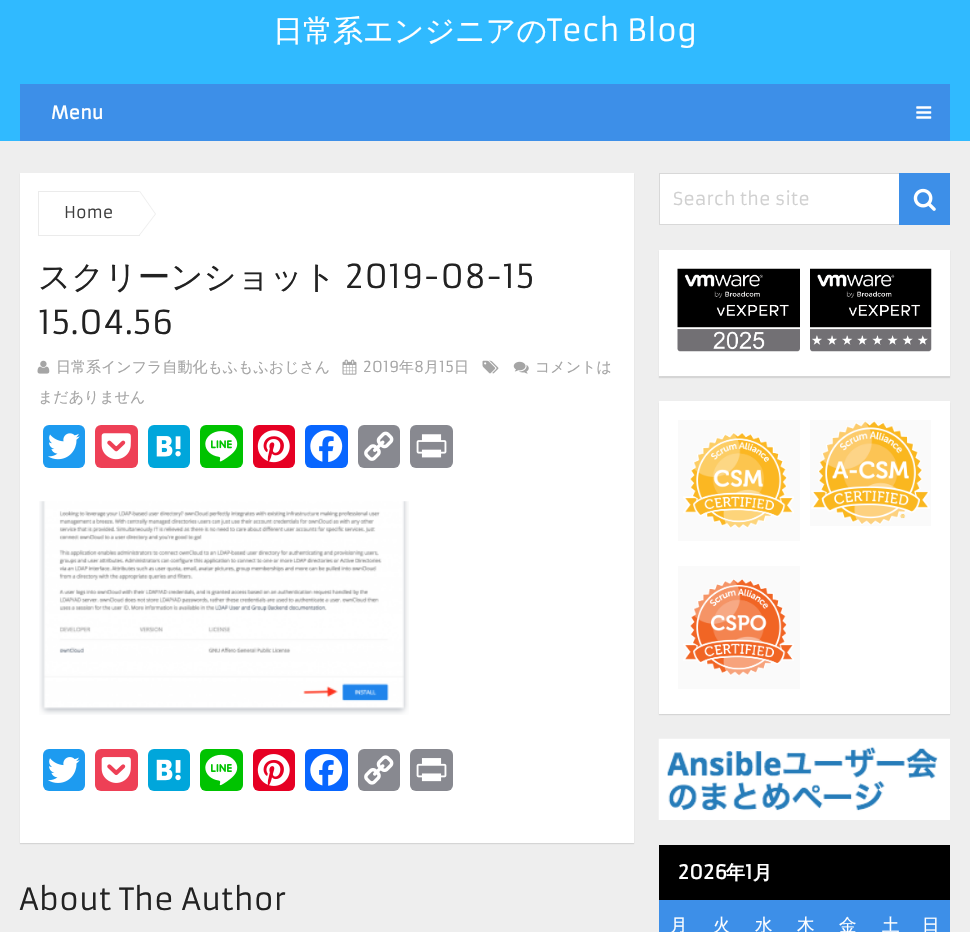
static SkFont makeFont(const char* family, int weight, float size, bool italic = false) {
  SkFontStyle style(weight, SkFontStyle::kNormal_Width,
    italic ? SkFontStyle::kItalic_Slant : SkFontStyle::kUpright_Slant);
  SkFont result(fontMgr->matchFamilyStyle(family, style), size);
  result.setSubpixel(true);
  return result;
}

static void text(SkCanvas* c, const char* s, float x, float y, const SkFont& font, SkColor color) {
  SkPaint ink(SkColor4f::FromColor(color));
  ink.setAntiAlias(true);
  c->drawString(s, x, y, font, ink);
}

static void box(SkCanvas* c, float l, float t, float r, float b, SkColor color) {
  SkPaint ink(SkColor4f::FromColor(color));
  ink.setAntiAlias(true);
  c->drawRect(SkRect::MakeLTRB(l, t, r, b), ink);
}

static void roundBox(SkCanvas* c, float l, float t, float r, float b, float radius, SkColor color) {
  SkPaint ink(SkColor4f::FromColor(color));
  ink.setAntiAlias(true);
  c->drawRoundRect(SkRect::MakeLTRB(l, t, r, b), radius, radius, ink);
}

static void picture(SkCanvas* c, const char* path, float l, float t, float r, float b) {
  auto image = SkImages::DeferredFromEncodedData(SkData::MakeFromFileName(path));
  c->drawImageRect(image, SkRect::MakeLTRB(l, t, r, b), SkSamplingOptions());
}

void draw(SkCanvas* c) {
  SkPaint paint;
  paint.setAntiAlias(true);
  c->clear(0xffeeeeee);
  box(c, 0, 0, 970, 141, 0xff30baff);
  SkFont face1 = makeFont("WenQuanYi Zen Hei", 500, 30);
  text(c, "日常系エンジニアの", 273, 41, face1, 0xffffffff);
  SkFont face2 = makeFont("Armata", 400, 30);
  text(c, "Tech Blog", 547, 41, face2, 0xffffffff);
  box(c, 20, 84, 950, 141, 0xff3d8fe8);
  SkFont face3 = makeFont("Armata", 700, 17.5f);
  text(c, "Menu", 51, 119, face3, 0xffffffff);
  picture(c, "img_01.png", 916, 106, 932, 119);
  paint.setColor(0x1a000000);
  paint.setMaskFilter(SkMaskFilter::MakeBlur(kNormal_SkBlurStyle, 0.5f));
  c->drawRect(SkRect::MakeLTRB(20, 174, 634, 844), paint);
  paint.setMaskFilter(nullptr);
  box(c, 20, 173, 634, 843, 0xffffffff);
  paint.setStyle(SkPaint::kStroke_Style);
  paint.setStrokeWidth(1);
  paint.setColor(0xffebebeb);
  c->drawRect(SkRect::MakeLTRB(38.5f, 191.5f, 139.5f, 235.5f), paint);
  SkFont face4 = makeFont("Armata", 400, 16);
  text(c, "Home", 64, 218, face4, 0xff3e3e3e);
  paint.setStyle(SkPaint::kFill_Style);
  paint.setColor(0xffeeeeee);
  c->drawPath(SkPathBuilder().moveTo(140, 235).lineTo(140, 191).lineTo(156, 214).close().detach(), paint);
  paint.setColor(0xffffffff);
  c->drawPath(SkPathBuilder().moveTo(139, 235).lineTo(139, 191).lineTo(155, 214).close().detach(), paint);
  SkFont face5 = makeFont("WenQuanYi Zen Hei", 500, 32.5f);
  text(c, "スクリーンショット", 38, 288, face5, 0xff222222);
  SkFont face6 = makeFont("Armata", 400, 32.5f);
  text(c, "2019-08-15", 345, 288, face6, 0xff222222);
  text(c, "15.04.56", 38, 334, face6, 0xff222222);
  picture(c, "img_02.png", 37, 360, 50, 374);
  SkFont face7 = makeFont("WenQuanYi Zen Hei", 500, 15);
  text(c, "日常系インフラ自動化もふもふおじさん", 56, 372, face7, 0xffa5a5a5);
  picture(c, "img_03.png", 342, 359, 357, 375);
  SkFont face8 = makeFont("Armata", 400, 15);
  text(c, "2019", 363, 372, face8, 0xffa5a5a5);
  text(c, "年", 399, 372, face7, 0xffa5a5a5);
  text(c, "8", 414, 372, face8, 0xffa5a5a5);
  text(c, "月", 424, 372, face7, 0xffa5a5a5);
  text(c, "15", 439, 372, face8, 0xffa5a5a5);
  text(c, "日", 454, 372, face7, 0xffa5a5a5);
  picture(c, "img_04.png", 482, 360, 499, 374);
  picture(c, "img_05.png", 513, 361, 529, 374);
  text(c, "コメントは", 535, 372, face7, 0xffa5a5a5);
  text(c, "まだありません", 38, 402, face7, 0xffa5a5a5);
  roundBox(c, 43, 425, 85, 468, 6, 0xff1d9bf0);
  picture(c, "img_06.png", 48, 433, 80, 460);
  roundBox(c, 95, 425, 138, 468, 6, 0xffee4056);
  picture(c, "img_07.png", 101, 433, 131, 460);
  roundBox(c, 148, 425, 190, 468, 6, 0xff00a6db);
  picture(c, "img_08.png", 156, 436, 181, 457);
  roundBox(c, 200, 425, 243, 468, 6, 0xff00c300);
  picture(c, "img_09.png", 205, 431, 238, 462);
  roundBox(c, 253, 425, 295, 468, 6, 0xffe60023);
  picture(c, "img_10.png", 257, 430, 290, 463);
  roundBox(c, 305, 425, 348, 468, 6, 0xff0866ff);
  picture(c, "img_11.png", 310, 430, 343, 462);
  roundBox(c, 358, 425, 400, 468, 6, 0xff888990);
  picture(c, "img_12.png", 364, 431, 394, 461);
  roundBox(c, 410, 425, 453, 468, 6, 0xff888990);
  picture(c, "img_13.png", 416, 434, 447, 458);
  picture(c, "img_14.png", 39, 501, 409, 715);
  roundBox(c, 43, 749, 85, 791, 6, 0xff1d9bf0);
  picture(c, "img_15.png", 48, 757, 80, 783);
  roundBox(c, 95, 749, 138, 791, 6, 0xffee4056);
  picture(c, "img_16.png", 101, 757, 131, 783);
  roundBox(c, 148, 749, 190, 791, 6, 0xff00a6db);
  picture(c, "img_17.png", 156, 759, 181, 781);
  roundBox(c, 200, 749, 243, 791, 6, 0xff00c300);
  picture(c, "img_18.png", 205, 754, 238, 786);
  roundBox(c, 253, 749, 295, 791, 6, 0xffe60023);
  picture(c, "img_19.png", 257, 754, 290, 786);
  roundBox(c, 305, 749, 348, 791, 6, 0xff0866ff);
  picture(c, "img_20.png", 310, 754, 343, 786);
  roundBox(c, 358, 749, 400, 791, 6, 0xff888990);
  picture(c, "img_21.png", 364, 755, 394, 785);
  roundBox(c, 410, 749, 453, 791, 6, 0xff888990);
  picture(c, "img_22.png", 416, 758, 447, 782);
  text(c, "About The Author", 19, 910, face2, 0xff222222);
  box(c, 660, 174, 899, 224, 0xffffffff);
  paint.setStyle(SkPaint::kStroke_Style);
  paint.setColor(0xffd8d8d8);
  c->drawRect(SkRect::MakeLTRB(659.5f, 173.5f, 914.5f, 224.5f), paint);
  SkFont face9 = makeFont("Armata", 400, 17.5f);
  text(c, "Search the site", 673, 205, face9, 0xffd0d0d0);
  box(c, 899, 173, 950, 225, 0xff3d8fe8);
  picture(c, "img_23.png", 913, 188, 936, 211);
  paint.setStyle(SkPaint::kFill_Style);
  paint.setColor(0x1a000000);
  paint.setMaskFilter(SkMaskFilter::MakeBlur(kNormal_SkBlurStyle, 0.5f));
  c->drawRect(SkRect::MakeLTRB(659, 251, 950, 378), paint);
  paint.setMaskFilter(nullptr);
  box(c, 659, 250, 950, 376, 0xffffffff);
  picture(c, "img_24.png", 677, 268, 800, 352);
  picture(c, "img_25.png", 810, 268, 932, 352);
  paint.setMaskFilter(SkMaskFilter::MakeBlur(kNormal_SkBlurStyle, 0.5f));
  c->drawRect(SkRect::MakeLTRB(659, 403, 950, 715), paint);
  paint.setMaskFilter(nullptr);
  box(c, 659, 401, 950, 714, 0xffffffff);
  box(c, 678, 420, 800, 541, 0xfffafafa);
  picture(c, "img_26.png", 683, 432, 794, 529);
  box(c, 810, 420, 931, 526, 0xfffafafa);
  picture(c, "img_27.png", 811, 421, 930, 525);
  box(c, 678, 566, 800, 689, 0xfffafafa);
  picture(c, "img_28.png", 683, 579, 794, 676);
  picture(c, "img_29.png", 658, 738, 950, 820);
  box(c, 659, 845, 950, 900, 0xff000000);
  SkFont face10 = makeFont("Armata", 700, 19);
  text(c, "2026", 678, 879, face10, 0xffffffff);
  SkFont face11 = makeFont("WenQuanYi Zen Hei", 700, 19);
  text(c, "年", 726, 879, face11, 0xffffffff);
  text(c, "1", 745, 879, face10, 0xffffffff);
  text(c, "月", 753, 879, face11, 0xffffffff);
  box(c, 659, 900, 950, 932, 0xff3d8fe8);
  SkFont face12 = makeFont("WenQuanYi Zen Hei", 500, 17.5f);
  text(c, "月", 670, 931, face12, 0xffffffff);
  text(c, "火", 713, 931, face12, 0xffffffff);
  text(c, "水", 755, 931, face12, 0xffffffff);
  text(c, "木", 797, 931, face12, 0xffffffff);
  text(c, "金", 839, 931, face12, 0xffffffff);
  text(c, "土", 882, 931, face12, 0xffffffff);
  text(c, "日", 922, 931, face12, 0xffffffff);
}
